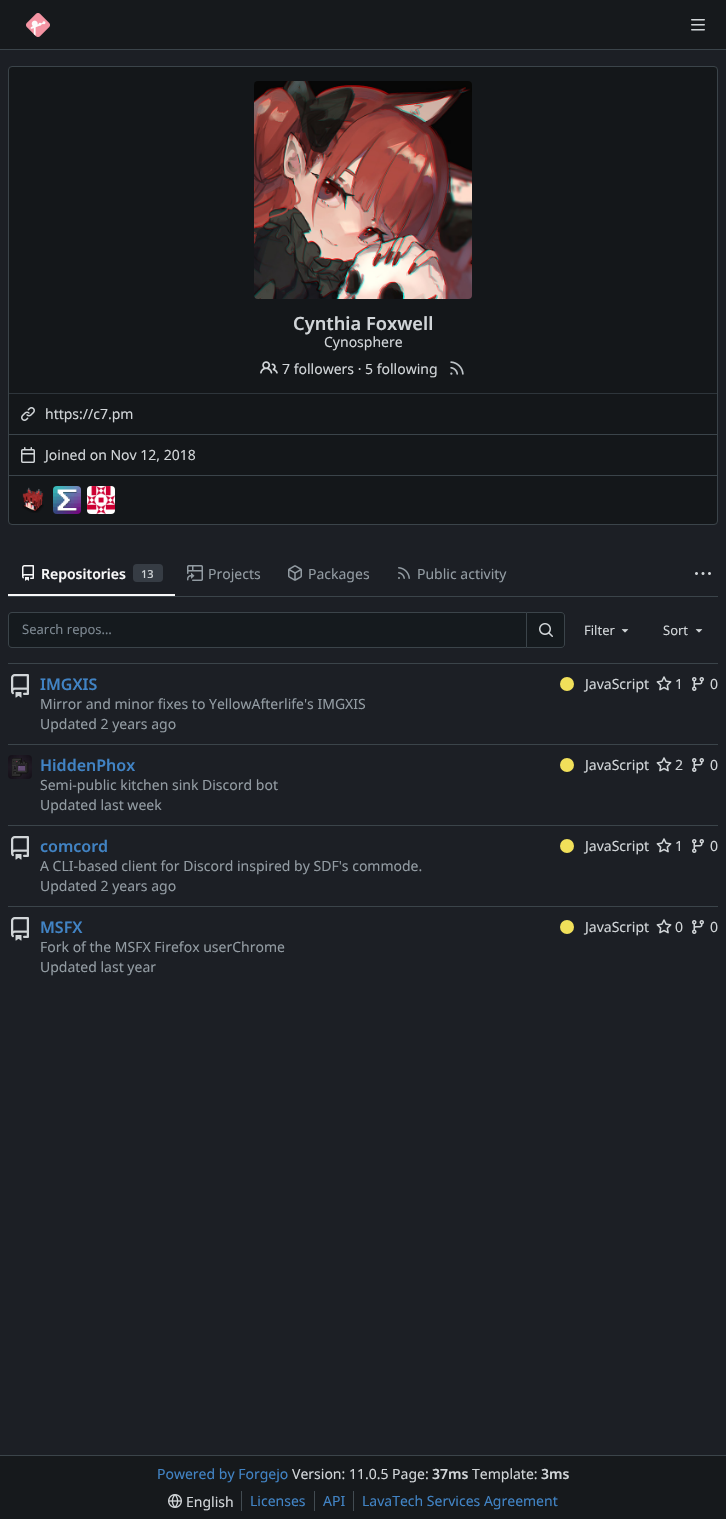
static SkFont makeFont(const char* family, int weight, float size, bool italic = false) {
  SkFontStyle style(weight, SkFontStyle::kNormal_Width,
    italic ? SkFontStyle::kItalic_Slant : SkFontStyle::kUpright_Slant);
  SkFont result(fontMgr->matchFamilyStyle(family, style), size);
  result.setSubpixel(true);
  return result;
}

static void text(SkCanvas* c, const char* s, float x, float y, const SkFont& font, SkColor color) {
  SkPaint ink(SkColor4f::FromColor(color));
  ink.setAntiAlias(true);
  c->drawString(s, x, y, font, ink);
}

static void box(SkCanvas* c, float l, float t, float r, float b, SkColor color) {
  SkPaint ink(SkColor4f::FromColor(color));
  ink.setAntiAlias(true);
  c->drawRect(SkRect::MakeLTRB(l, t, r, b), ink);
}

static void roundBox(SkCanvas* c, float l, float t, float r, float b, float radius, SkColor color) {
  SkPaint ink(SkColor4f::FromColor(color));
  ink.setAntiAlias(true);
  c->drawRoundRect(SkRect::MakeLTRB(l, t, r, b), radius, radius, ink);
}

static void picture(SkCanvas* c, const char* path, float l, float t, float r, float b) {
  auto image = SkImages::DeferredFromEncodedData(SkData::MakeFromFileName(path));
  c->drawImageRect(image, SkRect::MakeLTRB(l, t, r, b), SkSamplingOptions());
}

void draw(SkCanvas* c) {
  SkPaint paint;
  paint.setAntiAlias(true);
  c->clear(0xff1c1f25);
  box(c, 0, 0, 726, 49, 0xff16191c);
  box(c, 0, 49, 726, 50, 0xff3b444a);
  picture(c, "img_01.png", 26, 13, 50, 37);
  picture(c, "img_02.png", 691, 19, 705, 31);
  paint.setColor(0xff14171a);
  c->drawRoundRect(SkRect::MakeLTRB(8.5f, 66.5f, 717.5f, 524.5f), 3.5f, 3.5f, paint);
  paint.setStyle(SkPaint::kStroke_Style);
  paint.setStrokeWidth(1);
  paint.setColor(0xff3b444a);
  c->drawRoundRect(SkRect::MakeLTRB(8.5f, 66.5f, 717.5f, 524.5f), 3.5f, 3.5f, paint);
  picture(c, "img_03.png", 254, 81, 472, 299);
  SkFont face1 = makeFont("Noto Sans", 600, 18.25f);
  text(c, "Cynthia Foxwell", 293, 330, face1, 0xffd1d5d8);
  SkFont face2 = makeFont("Noto Sans", 400, 14);
  text(c, "Cynosphere", 324, 347, face2, 0xffd1d5d8);
  picture(c, "img_04.png", 260, 361, 278, 374);
  text(c, "7 followers · 5 following", 282, 374, face2, 0xffd1d5d8);
  picture(c, "img_05.png", 450, 361, 464, 375);
  box(c, 9, 393, 717, 394, 0xff2e353b);
  box(c, 9, 434, 717, 435, 0xff3b444a);
  picture(c, "img_06.png", 21, 407, 35, 421);
  text(c, "https://c7.pm", 45, 419, face2, 0xffd1d5d8);
  box(c, 9, 475, 717, 476, 0xff3b444a);
  picture(c, "img_07.png", 21, 447, 35, 463);
  text(c, "Joined on Nov 12, 2018", 45, 460, face2, 0xffd1d5d8);
  picture(c, "img_08.png", 22, 487, 44, 513);
  picture(c, "img_09.png", 53, 486, 81, 514);
  picture(c, "img_10.png", 87, 486, 115, 514);
  box(c, 8, 596, 718, 597, 0xff3b444a);
  box(c, 8, 594, 175, 596, 0xfff8f8f9);
  picture(c, "img_11.png", 22, 565, 34, 581);
  SkFont face3 = makeFont("Noto Sans", 600, 14);
  text(c, "Repositories", 41, 579, face3, 0xfff8f8f9);
  roundBox(c, 133, 564, 163, 582, 4, 0xff363c44);
  SkFont face4 = makeFont("Noto Sans", 500, 11);
  text(c, "13", 141, 578, face4, 0xffd1d5d8);
  picture(c, "img_12.png", 187, 565, 203, 581);
  text(c, "Projects", 208, 579, face2, 0xff929ba2);
  picture(c, "img_13.png", 288, 565, 302, 581);
  text(c, "Packages", 308, 579, face2, 0xff929ba2);
  picture(c, "img_14.png", 398, 567, 410, 579);
  text(c, "Public activity", 417, 579, face2, 0xff929ba2);
  picture(c, "img_15.png", 695, 572, 711, 575);
  paint.setStyle(SkPaint::kFill_Style);
  paint.setColor(0xff151a1e);
  c->drawPath(SkPathBuilder().moveTo(12, 612).lineTo(526, 612).lineTo(526, 648).lineTo(12, 648).cubicTo(10, 648, 8, 646, 8, 644).lineTo(8, 616).cubicTo(8, 614, 10, 612, 12, 612).close().detach(), paint);
  paint.setColor(0xff3b444a);
  c->drawPath(SkPathBuilder(SkPathFillType::kEvenOdd).moveTo(12, 612).lineTo(526, 612).lineTo(526, 648).lineTo(12, 648).cubicTo(10, 648, 8, 646, 8, 644).lineTo(8, 616).cubicTo(8, 614, 10, 612, 12, 612).close().moveTo(12, 613).lineTo(526, 613).lineTo(526, 647).lineTo(12, 647).cubicTo(10, 647, 9, 646, 9, 644).lineTo(9, 616).cubicTo(9, 614, 10, 613, 12, 613).close().detach(), paint);
  SkFont face5 = makeFont("Noto Sans", 400, 13);
  text(c, "Search repos…", 22, 634, face5, 0xff7c8790);
  paint.setColor(0xff151a1e);
  c->drawPath(SkPathBuilder().moveTo(526.5f, 612.5f).lineTo(561, 612.5f).cubicTo(563, 612.5f, 564.5f, 614, 564.5f, 616).lineTo(564.5f, 644).cubicTo(564.5f, 646, 563, 647.5f, 561, 647.5f).lineTo(526.5f, 647.5f).close().detach(), paint);
  paint.setStyle(SkPaint::kStroke_Style);
  paint.setColor(0xff3b444a);
  c->drawPath(SkPathBuilder().moveTo(526.5f, 612.5f).lineTo(561, 612.5f).cubicTo(563, 612.5f, 564.5f, 614, 564.5f, 616).lineTo(564.5f, 644).cubicTo(564.5f, 646, 563, 647.5f, 561, 647.5f).lineTo(526.5f, 647.5f).close().detach(), paint);
  picture(c, "img_16.png", 539, 623, 553, 637);
  text(c, "Filter", 584, 635, face5, 0xffd1d5d8);
  picture(c, "img_17.png", 621, 629, 629, 633);
  text(c, "Sort", 663, 635, face5, 0xffd1d5d8);
  picture(c, "img_17.png", 695, 629, 703, 633);
  box(c, 8, 663, 718, 664, 0xff3b444a);
  picture(c, "img_18.png", 11, 674, 29, 698);
  SkFont face6 = makeFont("Noto Sans", 600, 16);
  text(c, "IMGXIS", 40, 690, face6, 0xff4183c4);
  paint.setStyle(SkPaint::kFill_Style);
  paint.setColor(0xfff1e05a);
  c->drawCircle(567, 684, 7, paint);
  text(c, "JavaScript", 585, 689, face2, 0xffd1d5d8);
  picture(c, "img_19.png", 656, 676, 672, 691);
  text(c, "1", 675, 689, face2, 0xffd1d5d8);
  picture(c, "img_20.png", 692, 677, 704, 691);
  text(c, "0", 710, 689, face2, 0xffd1d5d8);
  text(c, "Mirror and minor fixes to YellowAfterlife's IMGXIS", 40, 709, face2, 0xff929ba2);
  text(c, "Updated 2 years ago", 40, 729, face2, 0xff929ba2);
  box(c, 8, 744, 718, 745, 0xff3b444a);
  picture(c, "img_21.png", 8, 755, 32, 779);
  text(c, "HiddenPhox", 40, 771, face6, 0xff4183c4);
  c->drawCircle(567, 765, 7, paint);
  text(c, "JavaScript", 585, 770, face2, 0xffd1d5d8);
  picture(c, "img_19.png", 656, 757, 672, 772);
  text(c, "2", 675, 770, face2, 0xffd1d5d8);
  picture(c, "img_20.png", 692, 758, 704, 772);
  text(c, "0", 710, 770, face2, 0xffd1d5d8);
  text(c, "Semi-public kitchen sink Discord bot", 40, 790, face2, 0xff929ba2);
  text(c, "Updated last week", 40, 810, face2, 0xff929ba2);
  box(c, 8, 825, 718, 826, 0xff3b444a);
  picture(c, "img_18.png", 11, 836, 29, 860);
  text(c, "comcord", 40, 852, face6, 0xff4183c4);
  c->drawCircle(567, 846, 7, paint);
  text(c, "JavaScript", 585, 851, face2, 0xffd1d5d8);
  picture(c, "img_19.png", 656, 838, 672, 853);
  text(c, "1", 675, 851, face2, 0xffd1d5d8);
  picture(c, "img_20.png", 692, 839, 704, 853);
  text(c, "0", 710, 851, face2, 0xffd1d5d8);
  text(c, "A CLI-based client for Discord inspired by SDF's commode.", 40, 871, face2, 0xff929ba2);
  text(c, "Updated 2 years ago", 40, 891, face2, 0xff929ba2);
  box(c, 8, 906, 718, 907, 0xff3b444a);
  picture(c, "img_18.png", 11, 917, 29, 941);
  text(c, "MSFX", 40, 933, face6, 0xff4183c4);
  c->drawCircle(567, 927, 7, paint);
  text(c, "JavaScript", 585, 932, face2, 0xffd1d5d8);
  picture(c, "img_19.png", 656, 919, 672, 934);
  text(c, "0", 675, 932, face2, 0xffd1d5d8);
  picture(c, "img_20.png", 692, 920, 704, 934);
  text(c, "0", 710, 932, face2, 0xffd1d5d8);
  text(c, "Fork of the MSFX Firefox userChrome", 40, 952, face2, 0xff929ba2);
  text(c, "Updated last year", 40, 972, face2, 0xff929ba2);
  box(c, 0, 1456, 726, 1519, 0xff16191c);
  box(c, 0, 1455, 726, 1456, 0xff3b444a);
  text(c, "Powered by Forgejo", 157, 1479, face2, 0xff4183c4);
  text(c, "Version: 11.0.5 Page:", 292, 1479, face2, 0xffd1d5d8);
  text(c, "37ms", 432, 1479, face3, 0xffd1d5d8);
  text(c, "Template:", 472, 1479, face2, 0xffd1d5d8);
  text(c, "3ms", 541, 1479, face3, 0xffd1d5d8);
  picture(c, "img_22.png", 168, 1494, 182, 1508);
  text(c, "English", 186, 1507, face2, 0xffd1d5d8);
  box(c, 241, 1491, 242, 1511, 0xff424b51);
  text(c, "Licenses", 250, 1506, face2, 0xff4183c4);
  box(c, 314, 1491, 315, 1511, 0xff424b51);
  text(c, "API", 323, 1506, face2, 0xff4183c4);
  box(c, 353, 1491, 354, 1511, 0xff424b51);
  text(c, "LavaTech Services Agreement", 362, 1506, face2, 0xff4183c4);
}
